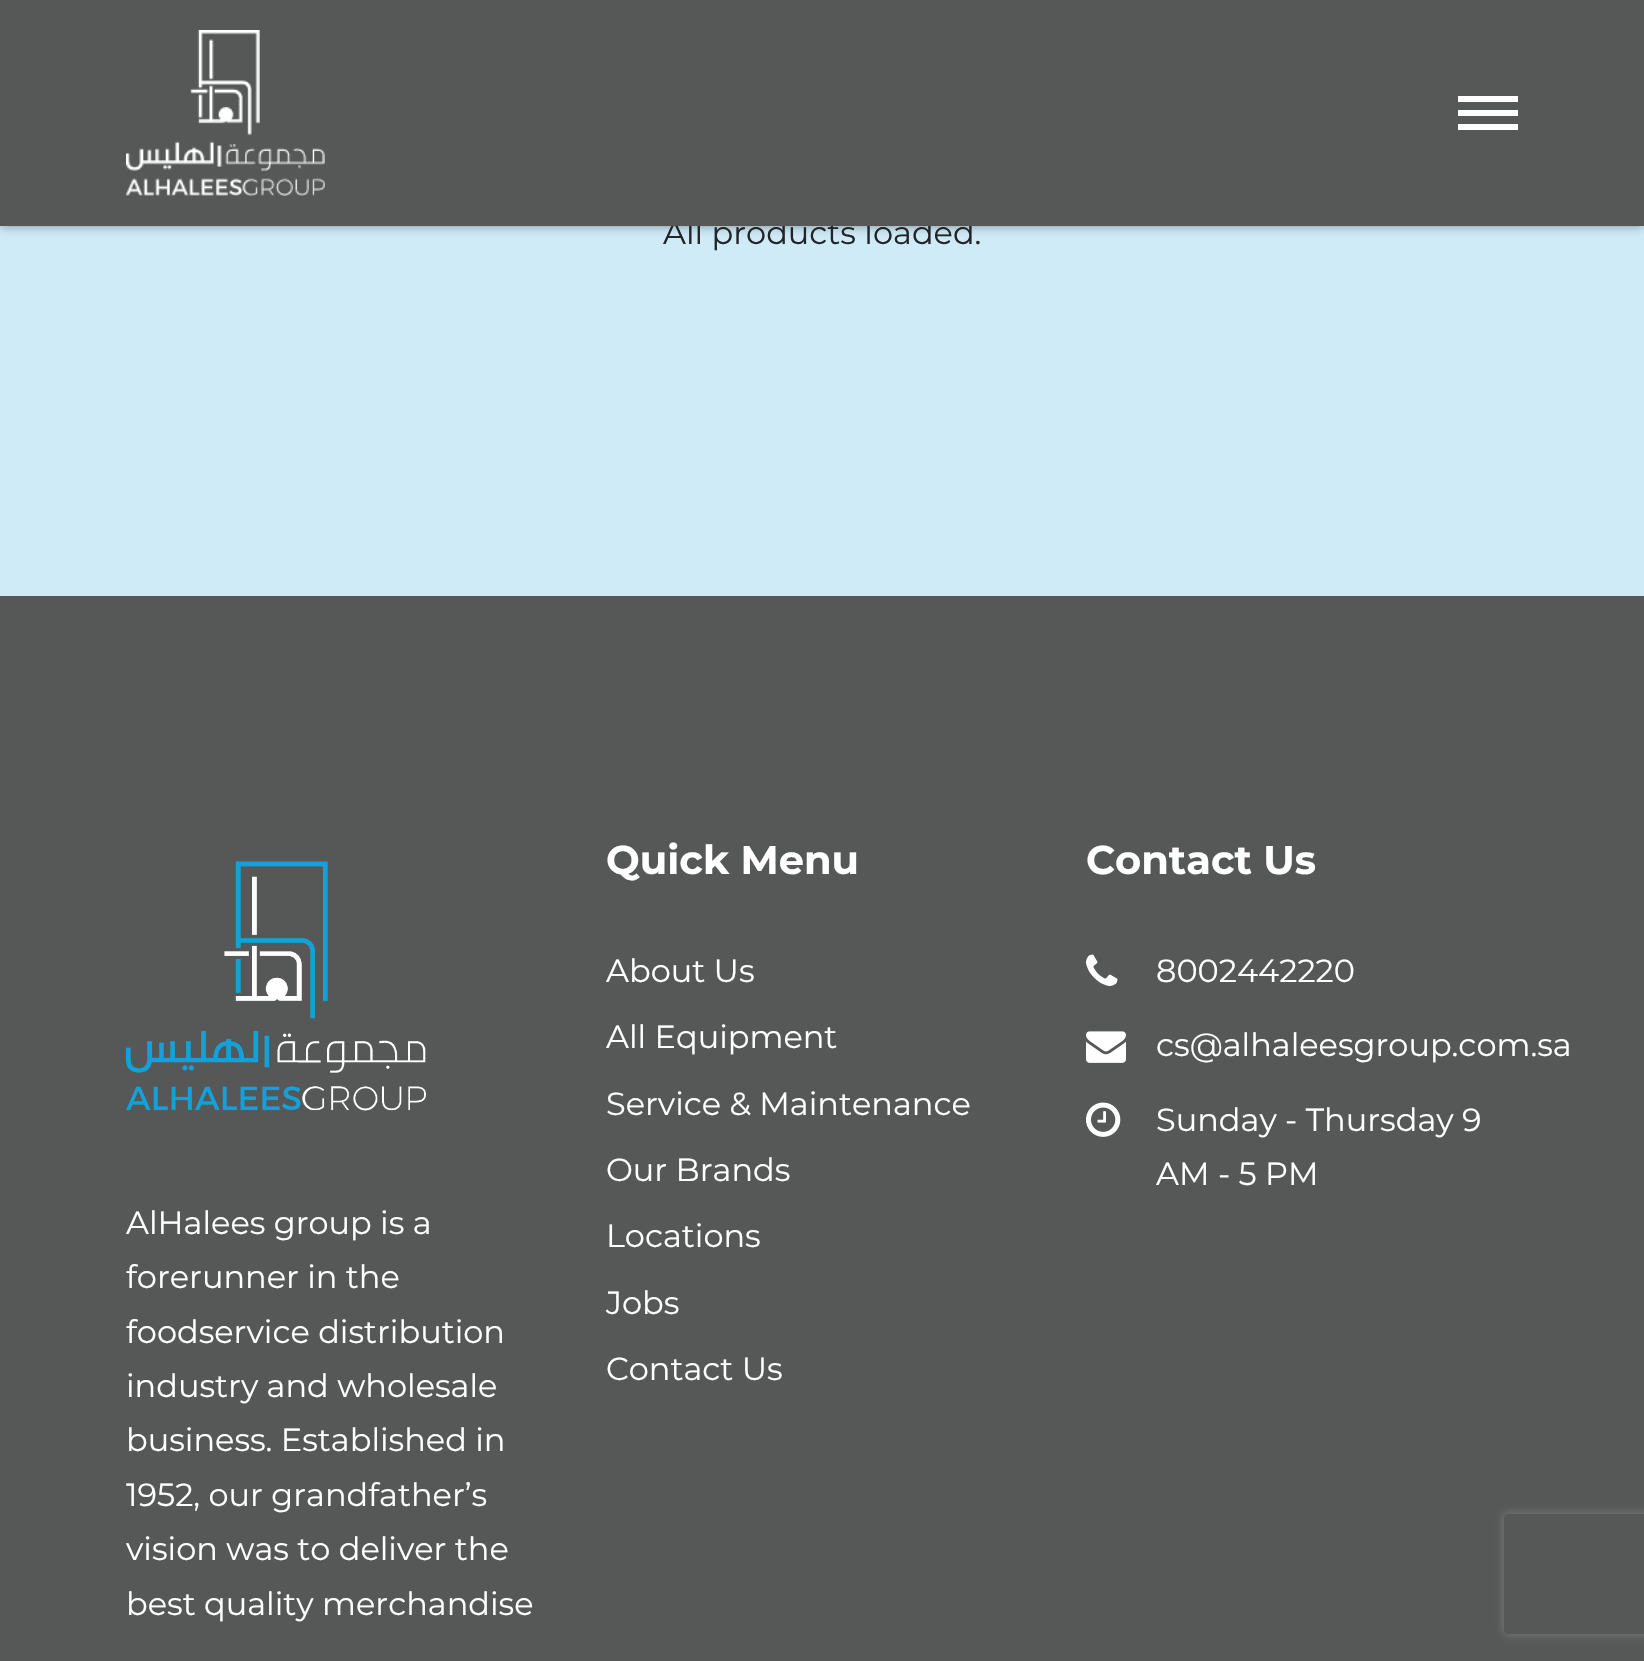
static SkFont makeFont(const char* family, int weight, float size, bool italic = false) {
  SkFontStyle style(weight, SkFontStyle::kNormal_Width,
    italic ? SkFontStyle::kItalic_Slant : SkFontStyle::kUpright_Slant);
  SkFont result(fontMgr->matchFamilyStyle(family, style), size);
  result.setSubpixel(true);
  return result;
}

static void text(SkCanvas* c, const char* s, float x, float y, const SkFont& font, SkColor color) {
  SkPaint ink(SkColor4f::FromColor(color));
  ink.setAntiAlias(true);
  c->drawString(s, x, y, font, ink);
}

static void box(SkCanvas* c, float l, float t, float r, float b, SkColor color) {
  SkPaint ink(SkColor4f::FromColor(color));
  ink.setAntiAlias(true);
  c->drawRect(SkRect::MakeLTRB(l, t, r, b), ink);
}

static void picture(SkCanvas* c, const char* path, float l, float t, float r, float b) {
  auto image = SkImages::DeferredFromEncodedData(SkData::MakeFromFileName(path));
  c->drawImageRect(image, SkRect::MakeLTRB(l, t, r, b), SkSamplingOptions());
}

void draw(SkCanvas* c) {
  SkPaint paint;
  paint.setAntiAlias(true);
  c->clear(0xffcfebf7);
  paint.setColor(0x66000000);
  paint.setMaskFilter(SkMaskFilter::MakeBlur(kNormal_SkBlurStyle, 5));
  c->drawRect(SkRect::MakeLTRB(0, 0, 1644, 226), paint);
  paint.setMaskFilter(nullptr);
  SkFont face1 = makeFont("Montserrat", 400, 32);
  text(c, "All products loaded.", 663, 244, face1, 0xff212529);
  box(c, 0, 0, 1644, 226, 0xff565858);
  picture(c, "img_01.png", 126, 30, 325, 196);
  box(c, 1458, 96, 1518, 102, 0xffffffff);
  box(c, 1458, 110, 1518, 116, 0xffffffff);
  box(c, 1458, 124, 1518, 130, 0xffffffff);
  box(c, 0, 596, 1644, 1661, 0xff565858);
  SkFont face2 = makeFont("Montserrat", 700, 40);
  text(c, "Quick Menu", 606, 874, face2, 0xffffffff);
  text(c, "About Us", 606, 982, face1, 0xffffffff);
  text(c, "All Equipment", 606, 1048, face1, 0xffffffff);
  text(c, "Service & Maintenance", 606, 1115, face1, 0xffffffff);
  text(c, "Our Brands", 606, 1181, face1, 0xffffffff);
  text(c, "Locations", 606, 1247, face1, 0xffffffff);
  text(c, "Jobs", 606, 1314, face1, 0xffffffff);
  text(c, "Contact Us", 606, 1380, face1, 0xffffffff);
  text(c, "Contact Us", 1086, 874, face2, 0xffffffff);
  picture(c, "img_02.png", 1086, 954, 1118, 986);
  text(c, "8002442220", 1156, 982, face1, 0xffffffff);
  picture(c, "img_03.png", 1086, 1031, 1126, 1063);
  text(c, "cs@alhaleesgroup.com.sa", 1156, 1056, face1, 0xffffffff);
  picture(c, "img_04.png", 1086, 1102, 1121, 1137);
  text(c, "Sunday - Thursday 9", 1156, 1131, face1, 0xffffffff);
  text(c, "AM - 5 PM", 1156, 1185, face1, 0xffffffff);
  picture(c, "img_05.png", 126, 861, 426, 1111);
  text(c, "AlHalees group is a", 126, 1234, face1, 0xffffffff);
  text(c, "forerunner in the", 126, 1288, face1, 0xffffffff);
  text(c, "foodservice distribution", 126, 1343, face1, 0xffffffff);
  text(c, "industry and wholesale", 126, 1397, face1, 0xffffffff);
  text(c, "business. Established in", 126, 1451, face1, 0xffffffff);
  text(c, "1952, our grandfather’s", 126, 1506, face1, 0xffffffff);
  text(c, "vision was to deliver the", 126, 1560, face1, 0xffffffff);
  text(c, "best quality merchandise", 126, 1615, face1, 0xffffffff);
  c->save();
  c->clipPath(SkPathBuilder(SkPathFillType::kEvenOdd).moveTo(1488, 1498).lineTo(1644, 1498).lineTo(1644, 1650).lineTo(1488, 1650).close().moveTo(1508, 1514).lineTo(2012, 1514).cubicTo(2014, 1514, 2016, 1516, 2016, 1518).lineTo(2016, 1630).cubicTo(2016, 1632, 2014, 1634, 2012, 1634).lineTo(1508, 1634).cubicTo(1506, 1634, 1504, 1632, 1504, 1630).lineTo(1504, 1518).cubicTo(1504, 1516, 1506, 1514, 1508, 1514).close().detach(), true);
  paint.setColor(0xff808080);
  paint.setMaskFilter(SkMaskFilter::MakeBlur(kNormal_SkBlurStyle, 5));
  c->drawRoundRect(SkRect::MakeLTRB(1504, 1514, 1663, 1634), 4, 4, paint);
  paint.setMaskFilter(nullptr);
  c->restore();
}
